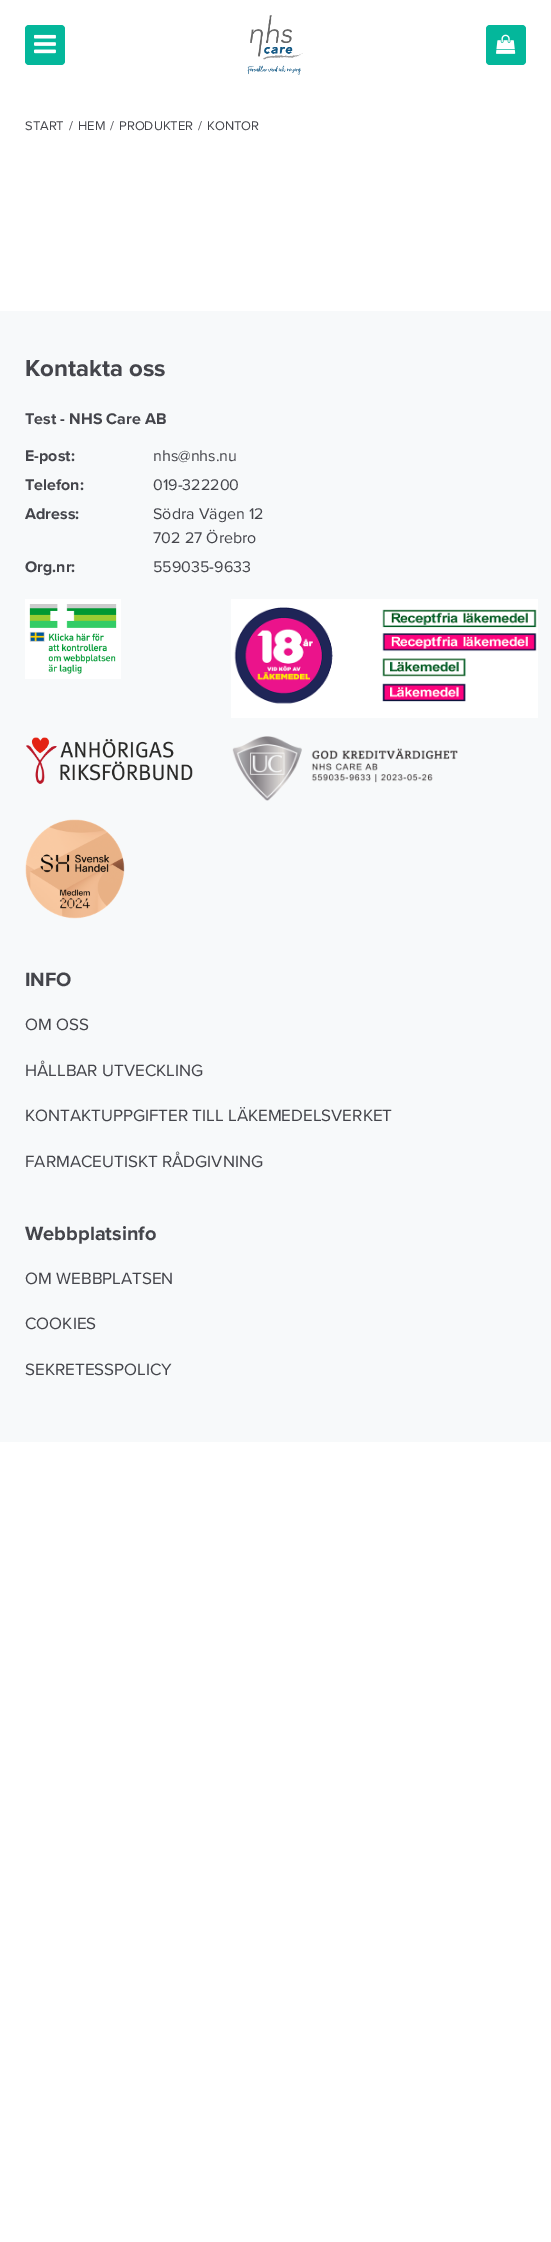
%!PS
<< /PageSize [551 2242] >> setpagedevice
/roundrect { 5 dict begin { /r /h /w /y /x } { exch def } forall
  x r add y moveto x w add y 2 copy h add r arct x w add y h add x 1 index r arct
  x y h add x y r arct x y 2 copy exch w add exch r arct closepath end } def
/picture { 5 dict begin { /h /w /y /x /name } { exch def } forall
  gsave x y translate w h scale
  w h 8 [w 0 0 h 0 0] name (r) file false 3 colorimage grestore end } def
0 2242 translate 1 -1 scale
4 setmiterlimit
1 setgray
0 0 551 2242 rectfill
0.016 0.718 0.608 setrgbcolor
25 25 40 40 4 roundrect fill
(img1.rgb) 34 34 22 20 picture
(img2.rgb) 247 15 56 60 picture
486 25 40 40 4 roundrect fill
(img3.rgb) 496 34 20 20 picture
/ProximaNova-Regular [13 0 0 -13 0 0] selectfont
0.267 0.271 0.294 setrgbcolor
25 130 moveto (START) show
69 130 moveto (/) show
78 130 moveto (HEM) show
110 130 moveto (/) show
119 130 moveto (PRODUKTER) show
198 130 moveto (/) show
207 130 moveto (KONTOR) show
0.969 0.976 0.98 setrgbcolor
0 311 551 1131 rectfill
/ProximaNova-Bold [24 0 0 -24 0 0] selectfont
0.267 0.271 0.294 setrgbcolor
25 376 moveto (Kontakta oss) show
/ProximaNova-Bold [16 0 0 -16 0 0] selectfont
25 424 moveto (Test - NHS Care AB) show
25 461 moveto (E-post:) show
/ProximaNova-Regular [16 0 0 -16 0 0] selectfont
153 461 moveto (nhs@nhs.nu) show
/ProximaNova-Bold [16 0 0 -16 0 0] selectfont
25 490 moveto (Telefon:) show
/ProximaNova-Regular [16 0 0 -16 0 0] selectfont
153 490 moveto (019-322200) show
/ProximaNova-Bold [16 0 0 -16 0 0] selectfont
25 519 moveto (Adress:) show
/ProximaNova-Regular [16 0 0 -16 0 0] selectfont
153 519 moveto (Södra Vägen 12) show
153 543 moveto (702 27 Örebro) show
/ProximaNova-Bold [16 0 0 -16 0 0] selectfont
25 572 moveto (Org.nr:) show
/ProximaNova-Regular [16 0 0 -16 0 0] selectfont
153 572 moveto (559035-9633) show
(img4.rgb) 25 599 96 80 picture
(img5.rgb) 231 599 307 119 picture
(img6.rgb) 26 737 167 47 picture
(img7.rgb) 232 736 226 65 picture
(img8.rgb) 25 819 100 100 picture
/ProximaNova-Bold [20 0 0 -20 0 0] selectfont
25 986 moveto (INFO) show
/ProximaNova-Regular [17 0 0 -17 0 0] selectfont
25 1030 moveto (OM OSS) show
25 1076 moveto (HÅLLBAR UTVECKLING) show
25 1121 moveto (KONTAKTUPPGIFTER TILL LÄKEMEDELSVERKET) show
25 1167 moveto (FARMACEUTISKT RÅDGIVNING) show
/ProximaNova-Bold [20 0 0 -20 0 0] selectfont
25 1240 moveto (Webbplatsinfo) show
/ProximaNova-Regular [17 0 0 -17 0 0] selectfont
25 1284 moveto (OM WEBBPLATSEN) show
25 1329 moveto (COOKIES) show
25 1375 moveto (SEKRETESSPOLICY) show
showpage
